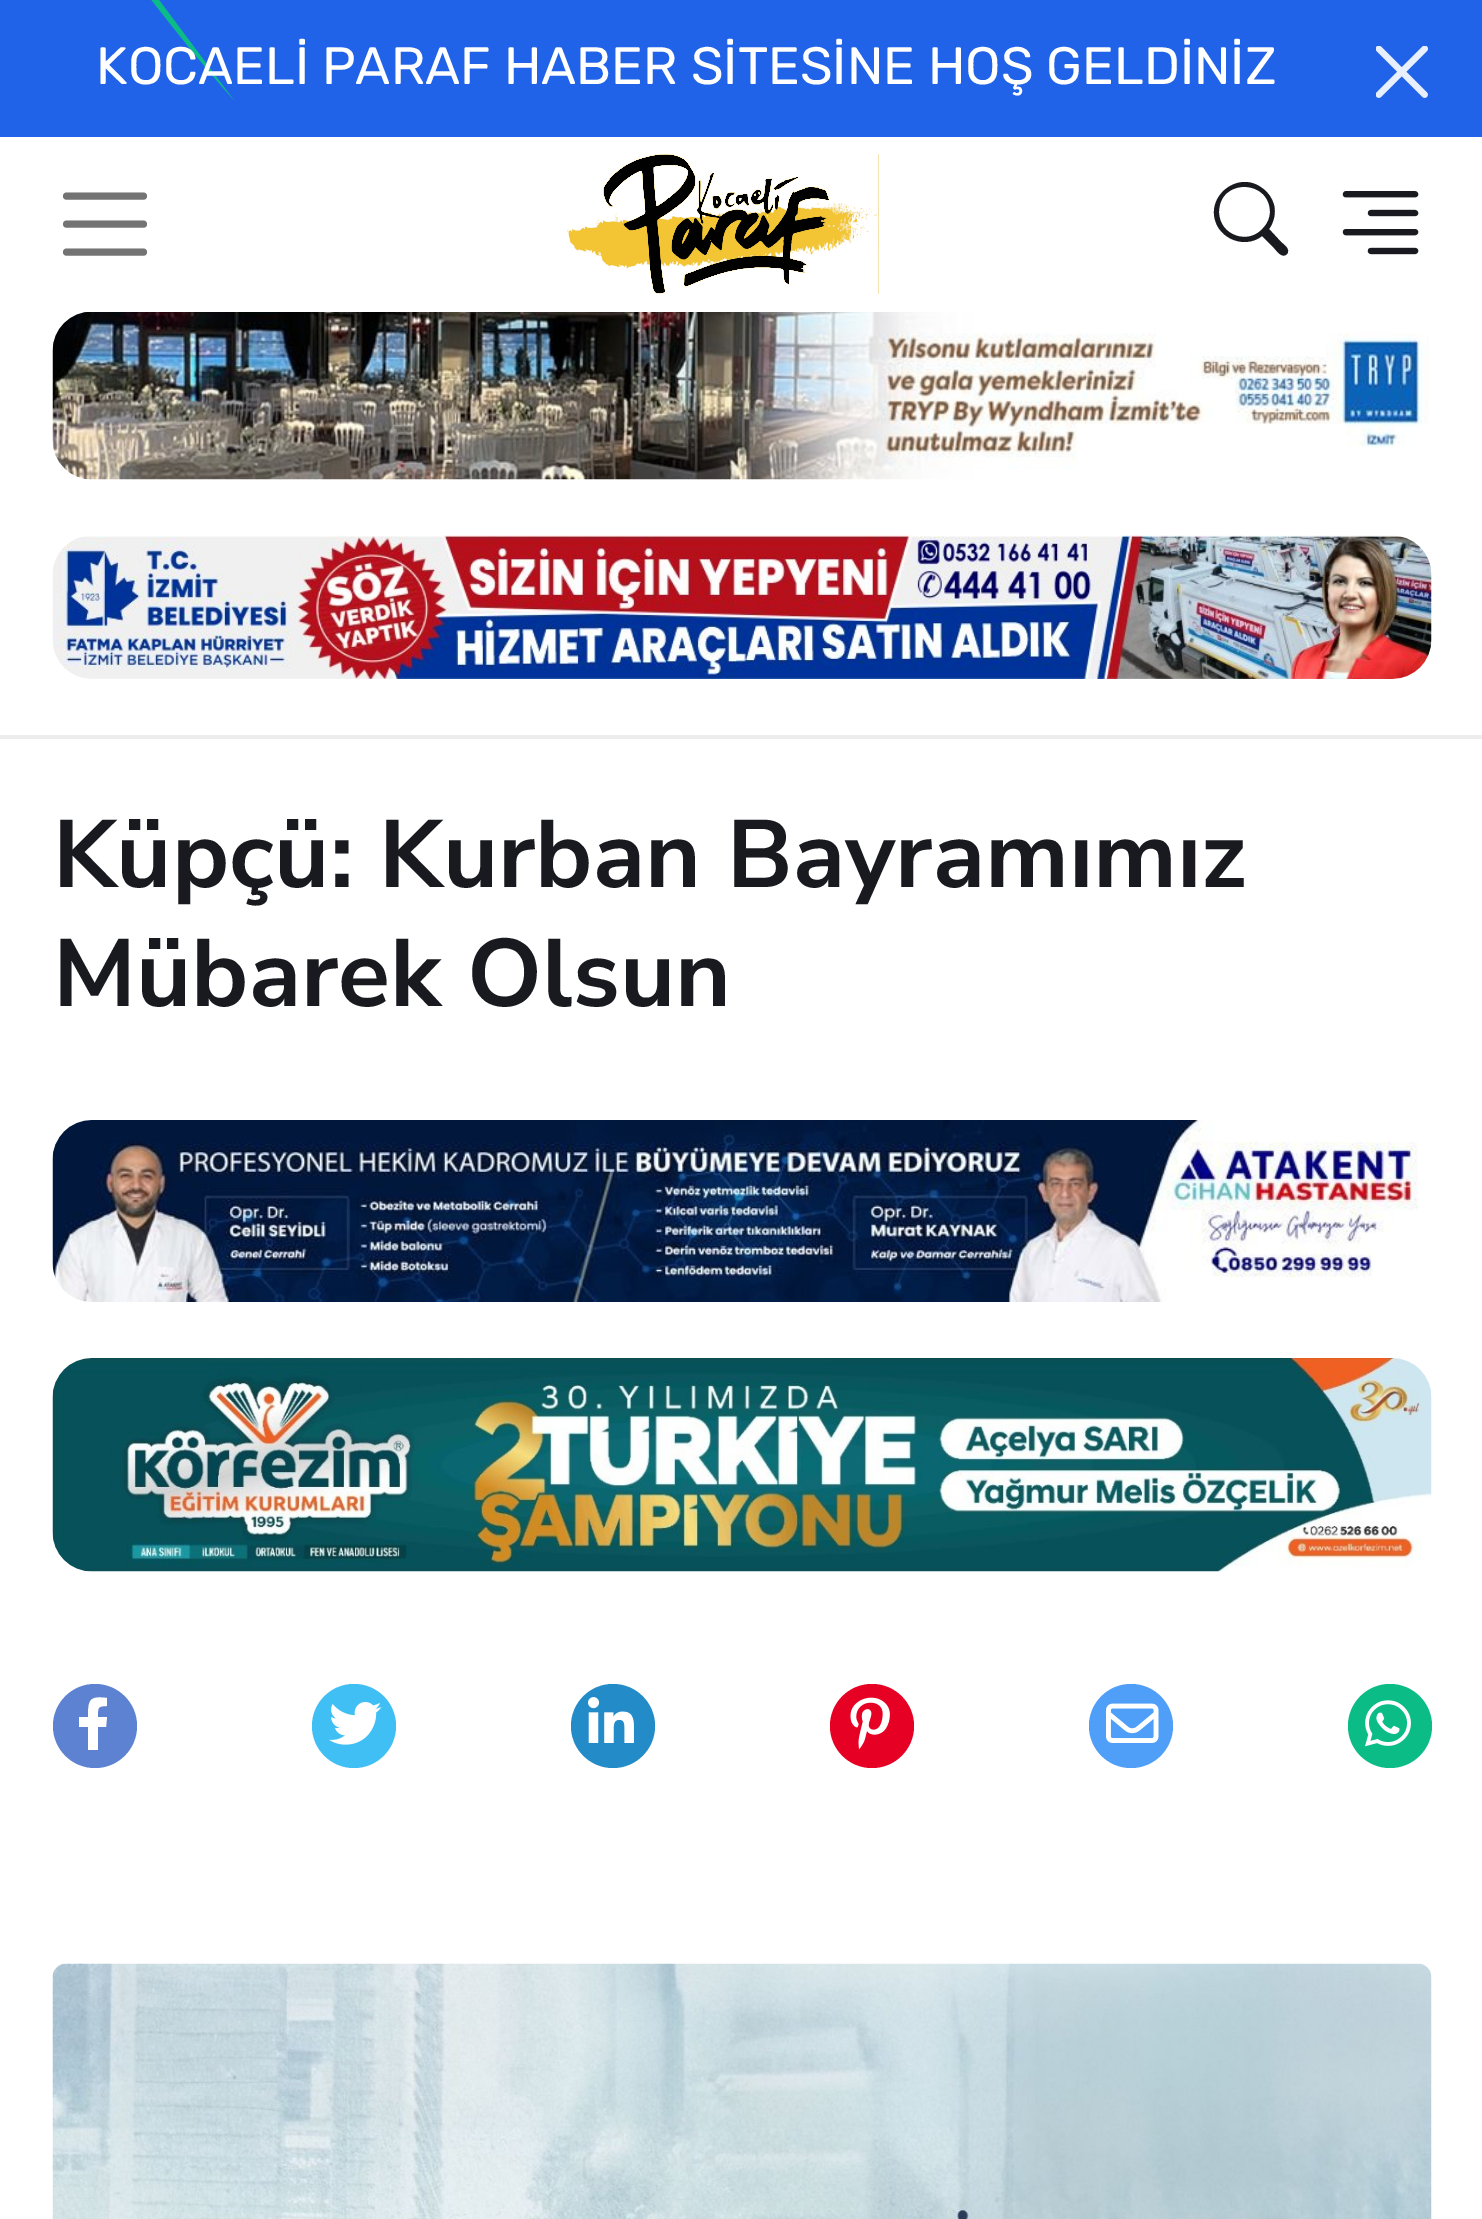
%!PS
<< /PageSize [1482 2219] >> setpagedevice
/picture { 5 dict begin { /h /w /y /x /name } { exch def } forall
  gsave x y translate w h scale
  w h 8 [w 0 0 h 0 0] name (r) file false 3 colorimage grestore end } def
0 2219 translate 1 -1 scale
4 setmiterlimit
1 setgray
0 0 1482 2219 rectfill
0.129 0.388 0.91 setrgbcolor
0 0 1482 137 rectfill
(img1.rgb) 151 0 84 101 picture
/Rubik-Regular [52.5 0 0 -52.5 0 0] selectfont
1 setgray
96 84 moveto (KOCAELİ PARAF HABER SİTESİNE HOŞ GELDİNİZ) show
(img2.rgb) 1376 46 52 52 picture
0.451 setgray
7 setlinewidth
1 setlinecap
newpath 66.5 196 moveto 143.5 196 lineto 66.5 224 moveto 143.5 224 lineto 66.5 252 moveto 143.5 252 lineto stroke
(img3.rgb) 567 154 312 140 picture
0.098 0.102 0.122 setrgbcolor
newpath 1269 229 moveto 1274 222 1276 213 1274 205 curveto 1272 198 1268 192 1262 188 curveto 1237 169 1202 199 1218 227 curveto 1227 242 1248 247 1262 236 curveto 1274 248 lineto 1277 251 1282 259 1287 254 curveto 1291 249 1283 244 1281 242 curveto closepath 1270 212 moveto 1270 217 1268 223 1264 227 curveto 1250 246 1219 236 1219 212 curveto 1219 178 1270 179 1270 212 curveto closepath fill
(img4.rgb) 1342 191 77 64 picture
(img5.rgb) 52 312 1377 168 picture
(img6.rgb) 52 535 1380 144 picture
0.929 setgray
0 735 1482 4 rectfill
/NunitoSans-Bold [95.6 0 0 -95.6 0 0] selectfont
0.098 0.102 0.122 setrgbcolor
53 887 moveto (Küpçü: Kurban Bayramımız) show
53 1006 moveto (Mübarek Olsun) show
(img7.rgb) 52 1120 1366 182 picture
(img8.rgb) 52 1358 1380 214 picture
0.365 0.51 0.82 setrgbcolor
newpath 95 1726 42 0 360 arc closepath fill
1 setgray
newpath 106 1727 moveto 98 1727 lineto 98 1750 lineto 88 1750 lineto 88 1727 lineto 79 1727 lineto 79 1717 lineto 88 1717 lineto 88 1699 90 1696 107 1698 curveto 107 1706 lineto 97 1706 98 1708 98 1717 curveto 107 1717 lineto closepath fill
0.251 0.749 0.961 setrgbcolor
newpath 354 1726 42 0 360 arc closepath fill
(img9.rgb) 329 1702 53 43 picture
0.137 0.549 0.784 setrgbcolor
newpath 613 1726 42 0 360 arc closepath fill
(img10.rgb) 588 1697 46 46 picture
0.902 0 0.137 setrgbcolor
newpath 872 1726 42 0 360 arc closepath fill
(img11.rgb) 850 1697 40 52 picture
0.31 0.62 0.973 setrgbcolor
newpath 1131 1726 42 0 360 arc closepath fill
(img12.rgb) 1106 1703 53 40 picture
0.047 0.737 0.529 setrgbcolor
newpath 1390 1726 42 0 360 arc closepath fill
(img13.rgb) 1365 1700 46 47 picture
(img14.rgb) 52 1963 1380 256 picture
showpage
